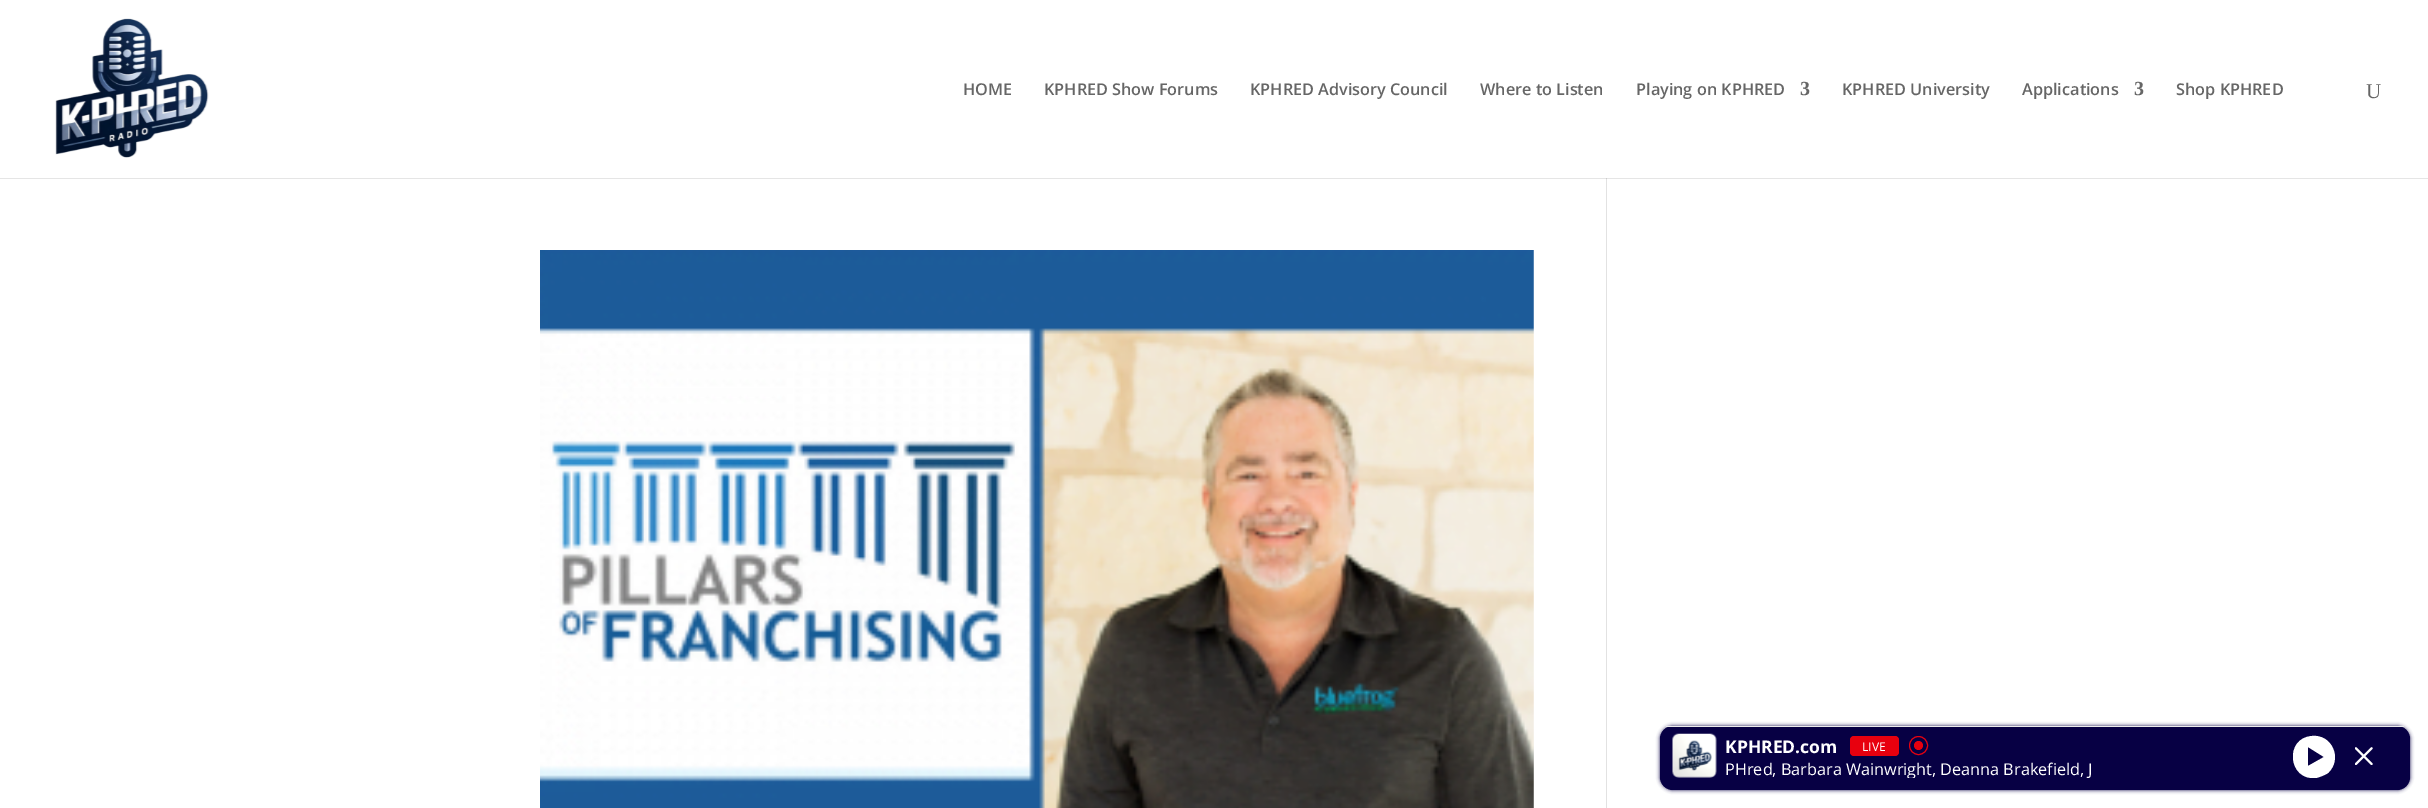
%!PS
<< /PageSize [2428 808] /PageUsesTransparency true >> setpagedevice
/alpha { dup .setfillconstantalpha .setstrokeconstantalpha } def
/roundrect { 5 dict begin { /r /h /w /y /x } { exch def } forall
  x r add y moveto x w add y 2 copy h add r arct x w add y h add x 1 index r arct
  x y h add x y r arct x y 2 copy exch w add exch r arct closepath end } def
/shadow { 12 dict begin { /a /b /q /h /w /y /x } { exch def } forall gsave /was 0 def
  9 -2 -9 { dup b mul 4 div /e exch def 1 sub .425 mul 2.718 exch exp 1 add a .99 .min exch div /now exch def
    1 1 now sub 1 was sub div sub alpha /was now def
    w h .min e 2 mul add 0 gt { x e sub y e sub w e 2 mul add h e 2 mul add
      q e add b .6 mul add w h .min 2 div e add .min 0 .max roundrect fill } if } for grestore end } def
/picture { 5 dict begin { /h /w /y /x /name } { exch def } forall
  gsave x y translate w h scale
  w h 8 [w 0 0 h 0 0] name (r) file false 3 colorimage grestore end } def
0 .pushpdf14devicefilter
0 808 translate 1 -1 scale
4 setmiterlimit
1 setgray
0 0 2428 808 rectfill
0.886 setgray
1606 178 1 630 rectfill
0.1 alpha
0 setgray
newpath 0 178 moveto 0 179 lineto 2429 179 lineto 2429 1 lineto 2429 178 lineto closepath fill
1 alpha
(img1.rgb) 55 18 154 140 picture
/OpenSans-SemiBold [16.25 0 0 -16.25 0 0] selectfont
0.4 setgray
963 95 moveto (HOME) show
1044 95 moveto (KPHRED Show Forums) show
1250 95 moveto (KPHRED Advisory Council) show
1480 95 moveto (Where to Listen) show
1636 95 moveto (Playing on KPHRED) show
/LiberationSerif-Bold [20 0 0 -20 0 0] selectfont
1800 95 moveto (3) show
/OpenSans-SemiBold [16.25 0 0 -16.25 0 0] selectfont
1842 95 moveto (KPHRED University) show
2022 95 moveto (Applications) show
/LiberationSerif-Bold [20 0 0 -20 0 0] selectfont
2134 95 moveto (3) show
/OpenSans-SemiBold [16.25 0 0 -16.25 0 0] selectfont
2176 95 moveto (Shop KPHRED) show
/LiberationSerif-Regular [21 0 0 -21 0 0] selectfont
2366 98 moveto (U) show
(img2.rgb) 540 250 994 558 picture
0.027 0 0.267 setrgbcolor
1660 726 750 64 13 2 1 shadow
1660 726 750 64 13 roundrect fill
0.929 setgray
1666 726 738 1 rectfill
(img3.rgb) 1672 733 45 45 picture
/OpenSans-Bold [17.5 0 0 -17.5 0 0] selectfont
1 setgray
1725 753 moveto (KPHRED.com) show
0.91 0 0.055 setrgbcolor
1850 736 49 20 4 roundrect fill
/OpenSans-Regular [12 0 0 -12 0 0] selectfont
1 setgray
1862 751 moveto (LIVE) show
0.91 0 0.055 setrgbcolor
newpath 1918.5 745.5 4.5 0 360 arc closepath fill
newpath 1918.5 745.5 9 0 360 arc closepath stroke
gsave
1725 758 370 20 rectclip
/OpenSans-Regular [16.25 0 0 -16.25 0 0] selectfont
1 setgray
1725 775 moveto (PHred, Barbara Wainwright, Deanna Brakefield, J) show
grestore
gsave
2293 735 42 43 rectclip
1 setgray
newpath 2312 736 moveto 2284 738 2288 781 2316 778 curveto 2320 777 2325 775 2328 773 curveto 2343 759 2332 734 2312 736 curveto closepath 2316 752 moveto 2324 757 lineto 2308 766 lineto 2308 747 lineto closepath fill
grestore
(img4.rgb) 2355 747 18 18 picture
.poppdf14devicefilter showpage
